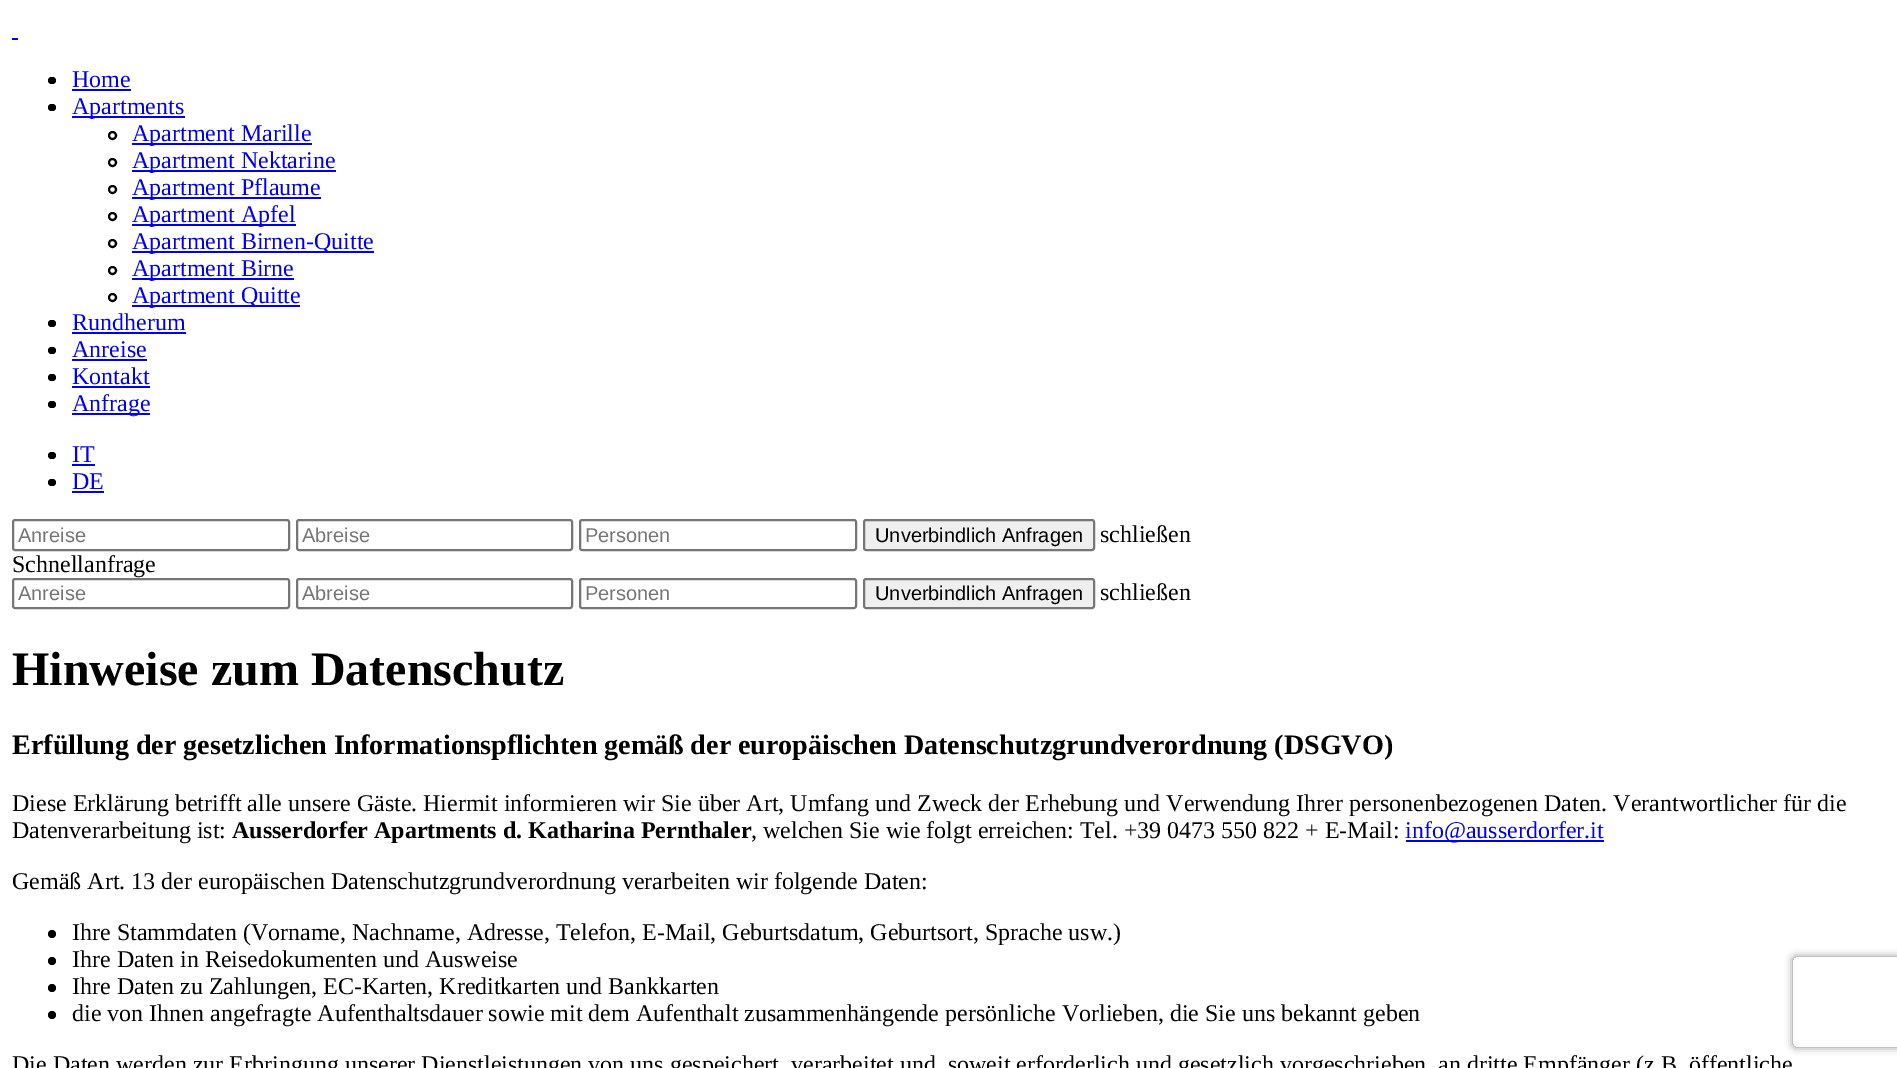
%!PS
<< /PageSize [1897 1068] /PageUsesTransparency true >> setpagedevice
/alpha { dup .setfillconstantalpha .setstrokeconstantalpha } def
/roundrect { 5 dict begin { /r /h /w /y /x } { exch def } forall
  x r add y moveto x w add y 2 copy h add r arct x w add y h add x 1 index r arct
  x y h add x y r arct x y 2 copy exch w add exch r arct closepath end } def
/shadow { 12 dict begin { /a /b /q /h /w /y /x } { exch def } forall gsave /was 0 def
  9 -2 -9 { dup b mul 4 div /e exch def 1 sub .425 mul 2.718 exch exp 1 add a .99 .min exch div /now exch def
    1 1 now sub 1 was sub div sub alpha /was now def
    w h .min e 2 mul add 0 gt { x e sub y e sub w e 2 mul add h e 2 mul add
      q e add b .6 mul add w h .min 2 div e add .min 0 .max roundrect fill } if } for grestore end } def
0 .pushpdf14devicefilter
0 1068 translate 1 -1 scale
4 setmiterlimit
1 setgray
0 0 1897 1068 rectfill
0 0 0.933 setrgbcolor
12 38 6 2 rectfill
0 setgray
48 77 8 7 3.5 roundrect fill
/LiberationSerif-Regular [24 0 0 -24 0 0] selectfont
0 0 0.933 setrgbcolor
72 87 moveto (Home) show
72 89 59 2 rectfill
0 setgray
48 104 8 7 3.5 roundrect fill
0 0 0.933 setrgbcolor
72 116 113 2 rectfill
72 114 moveto (Apartments) show
0 setgray
2 setlinewidth
newpath 112.5 135.5 3.5 0 360 arc closepath stroke
0 0 0.933 setrgbcolor
132 143 180 2 rectfill
132 141 moveto (Apartment Marille) show
0 setgray
newpath 112.5 162.5 3.5 0 360 arc closepath stroke
0 0 0.933 setrgbcolor
132 170 204 2 rectfill
132 168 moveto (Apartment Nektarine) show
0 setgray
newpath 112.5 189.5 3.5 0 360 arc closepath stroke
0 0 0.933 setrgbcolor
132 197 189 2 rectfill
132 195 moveto (Apartment Pflaume) show
0 setgray
newpath 112.5 216.5 3.5 0 360 arc closepath stroke
0 0 0.933 setrgbcolor
132 224 164 2 rectfill
132 222 moveto (Apartment Apfel) show
0 setgray
newpath 112.5 243.5 3.5 0 360 arc closepath stroke
0 0 0.933 setrgbcolor
132 251 242 2 rectfill
132 249 moveto (Apartment Birnen-Quitte) show
0 setgray
newpath 112.5 270.5 3.5 0 360 arc closepath stroke
0 0 0.933 setrgbcolor
132 278 162 2 rectfill
132 276 moveto (Apartment Birne) show
0 setgray
newpath 112.5 297.5 3.5 0 360 arc closepath stroke
0 0 0.933 setrgbcolor
132 305 168 2 rectfill
132 303 moveto (Apartment Quitte) show
0 setgray
48 320 8 7 3.5 roundrect fill
0 0 0.933 setrgbcolor
72 330 moveto (Rundherum) show
72 332 114 2 rectfill
0 setgray
48 347 8 7 3.5 roundrect fill
0 0 0.933 setrgbcolor
72 357 moveto (Anreise) show
72 359 75 2 rectfill
0 setgray
48 374 8 7 3.5 roundrect fill
0 0 0.933 setrgbcolor
72 384 moveto (Kontakt) show
72 386 78 2 rectfill
0 setgray
48 401 8 7 3.5 roundrect fill
0 0 0.933 setrgbcolor
72 413 78 2 rectfill
72 411 moveto (Anfrage) show
0 setgray
48 452 8 7 3.5 roundrect fill
0 0 0.933 setrgbcolor
72 462 moveto (IT) show
72 464 23 2 rectfill
0 setgray
48 479 8 7 3.5 roundrect fill
0 0 0.933 setrgbcolor
72 489 moveto (DE) show
72 491 32 2 rectfill
0.463 setgray
13 520 276 30 2 roundrect stroke
/LiberationSans-Regular [20 0 0 -20 0 0] selectfont
0.459 setgray
18 542 moveto (Anreise) show
0.463 setgray
297 520 275 30 2 roundrect stroke
0.459 setgray
302 542 moveto (Abreise) show
0.463 setgray
580 520 276 30 2 roundrect stroke
0.459 setgray
585 542 moveto (Personen) show
0.937 setgray
864 520 230 30 2 roundrect gsave fill grestore
0.463 setgray
stroke
0 setgray
875 542 moveto (Unverbindlich Anfragen) show
/LiberationSerif-Regular [24 0 0 -24 0 0] selectfont
1100 542 moveto (schließen) show
12 572 moveto (Schnellanfrage) show
0.463 setgray
13 579 276 29 2 roundrect stroke
/LiberationSans-Regular [20 0 0 -20 0 0] selectfont
0.459 setgray
18 600 moveto (Anreise) show
0.463 setgray
297 579 275 29 2 roundrect stroke
0.459 setgray
302 600 moveto (Abreise) show
0.463 setgray
580 579 276 29 2 roundrect stroke
0.459 setgray
585 600 moveto (Personen) show
0.937 setgray
864 579 230 29 2 roundrect gsave fill grestore
0.463 setgray
stroke
0 setgray
875 600 moveto (Unverbindlich Anfragen) show
/LiberationSerif-Regular [24 0 0 -24 0 0] selectfont
1100 600 moveto (schließen) show
/LiberationSerif-Bold [48 0 0 -48 0 0] selectfont
12 685 moveto (Hinweise zum Datenschutz) show
/LiberationSerif-Bold [28.1 0 0 -28.1 0 0] selectfont
12 754 moveto -0.25 0 32 (Erfüllung der gesetzlichen Informationspflichten gemäß der europäischen Datenschutzgrundverordnung \(DSGVO\)) widthshow
/LiberationSerif-Regular [24 0 0 -24 0 0] selectfont
12 811 moveto (Diese Erklärung betrifft alle unsere Gäste. Hiermit informieren wir Sie über Art, Umfang und Zweck der Erhebung und Verwendung Ihrer personenbezogenen Daten. Verantwortlicher für die) show
12 838 moveto (Datenverarbeitung ist:) show
/LiberationSerif-Bold [24 0 0 -24 0 0] selectfont
232 838 moveto (Ausserdorfer Apartments d. Katharina Pernthaler) show
/LiberationSerif-Regular [24 0 0 -24 0 0] selectfont
751 838 moveto (, welchen Sie wie folgt erreichen: Tel. +39 0473 550 822 + E-Mail:) show
0 0 0.933 setrgbcolor
1406 840 198 2 rectfill
1405 838 moveto (info@ausserdorfer.it) show
0 setgray
12 889 moveto (Gemäß Art. 13 der europäischen Datenschutzgrundverordnung verarbeiten wir folgende Daten:) show
newpath 52 934 4 0 360 arc closepath fill
72 940 moveto (Ihre Stammdaten \(Vorname, Nachname, Adresse, Telefon, E-Mail, Geburtsdatum, Geburtsort, Sprache usw.\)) show
newpath 52 961 4 0 360 arc closepath fill
72 967 moveto (Ihre Daten in Reisedokumenten und Ausweise) show
newpath 52 988 4 0 360 arc closepath fill
72 994 moveto (Ihre Daten zu Zahlungen, EC-Karten, Kreditkarten und Bankkarten) show
newpath 52 1015 4 0 360 arc closepath fill
72 1021 moveto (die von Ihnen angefragte Aufenthaltsdauer sowie mit dem Aufenthalt zusammenhängende persönliche Vorlieben, die Sie uns bekannt geben) show
12 1072 moveto (Die Daten werden zur Erbringung unserer Dienstleistungen von uns gespeichert, verarbeitet und, soweit erforderlich und gesetzlich vorgeschrieben, an dritte Empfänger \(z.B. öffentliche) show
gsave
newpath 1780 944 moveto 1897 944 lineto 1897 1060 lineto 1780 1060 lineto closepath 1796 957 moveto 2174 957 lineto 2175.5 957 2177 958.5 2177 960 curveto 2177 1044 lineto 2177 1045.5 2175.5 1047 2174 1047 curveto 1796 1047 lineto 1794.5 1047 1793 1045.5 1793 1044 curveto 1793 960 lineto 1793 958.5 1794.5 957 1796 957 curveto closepath eoclip newpath
0.502 setgray
1793 957 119 90 3 4 1 shadow
grestore
.poppdf14devicefilter showpage
